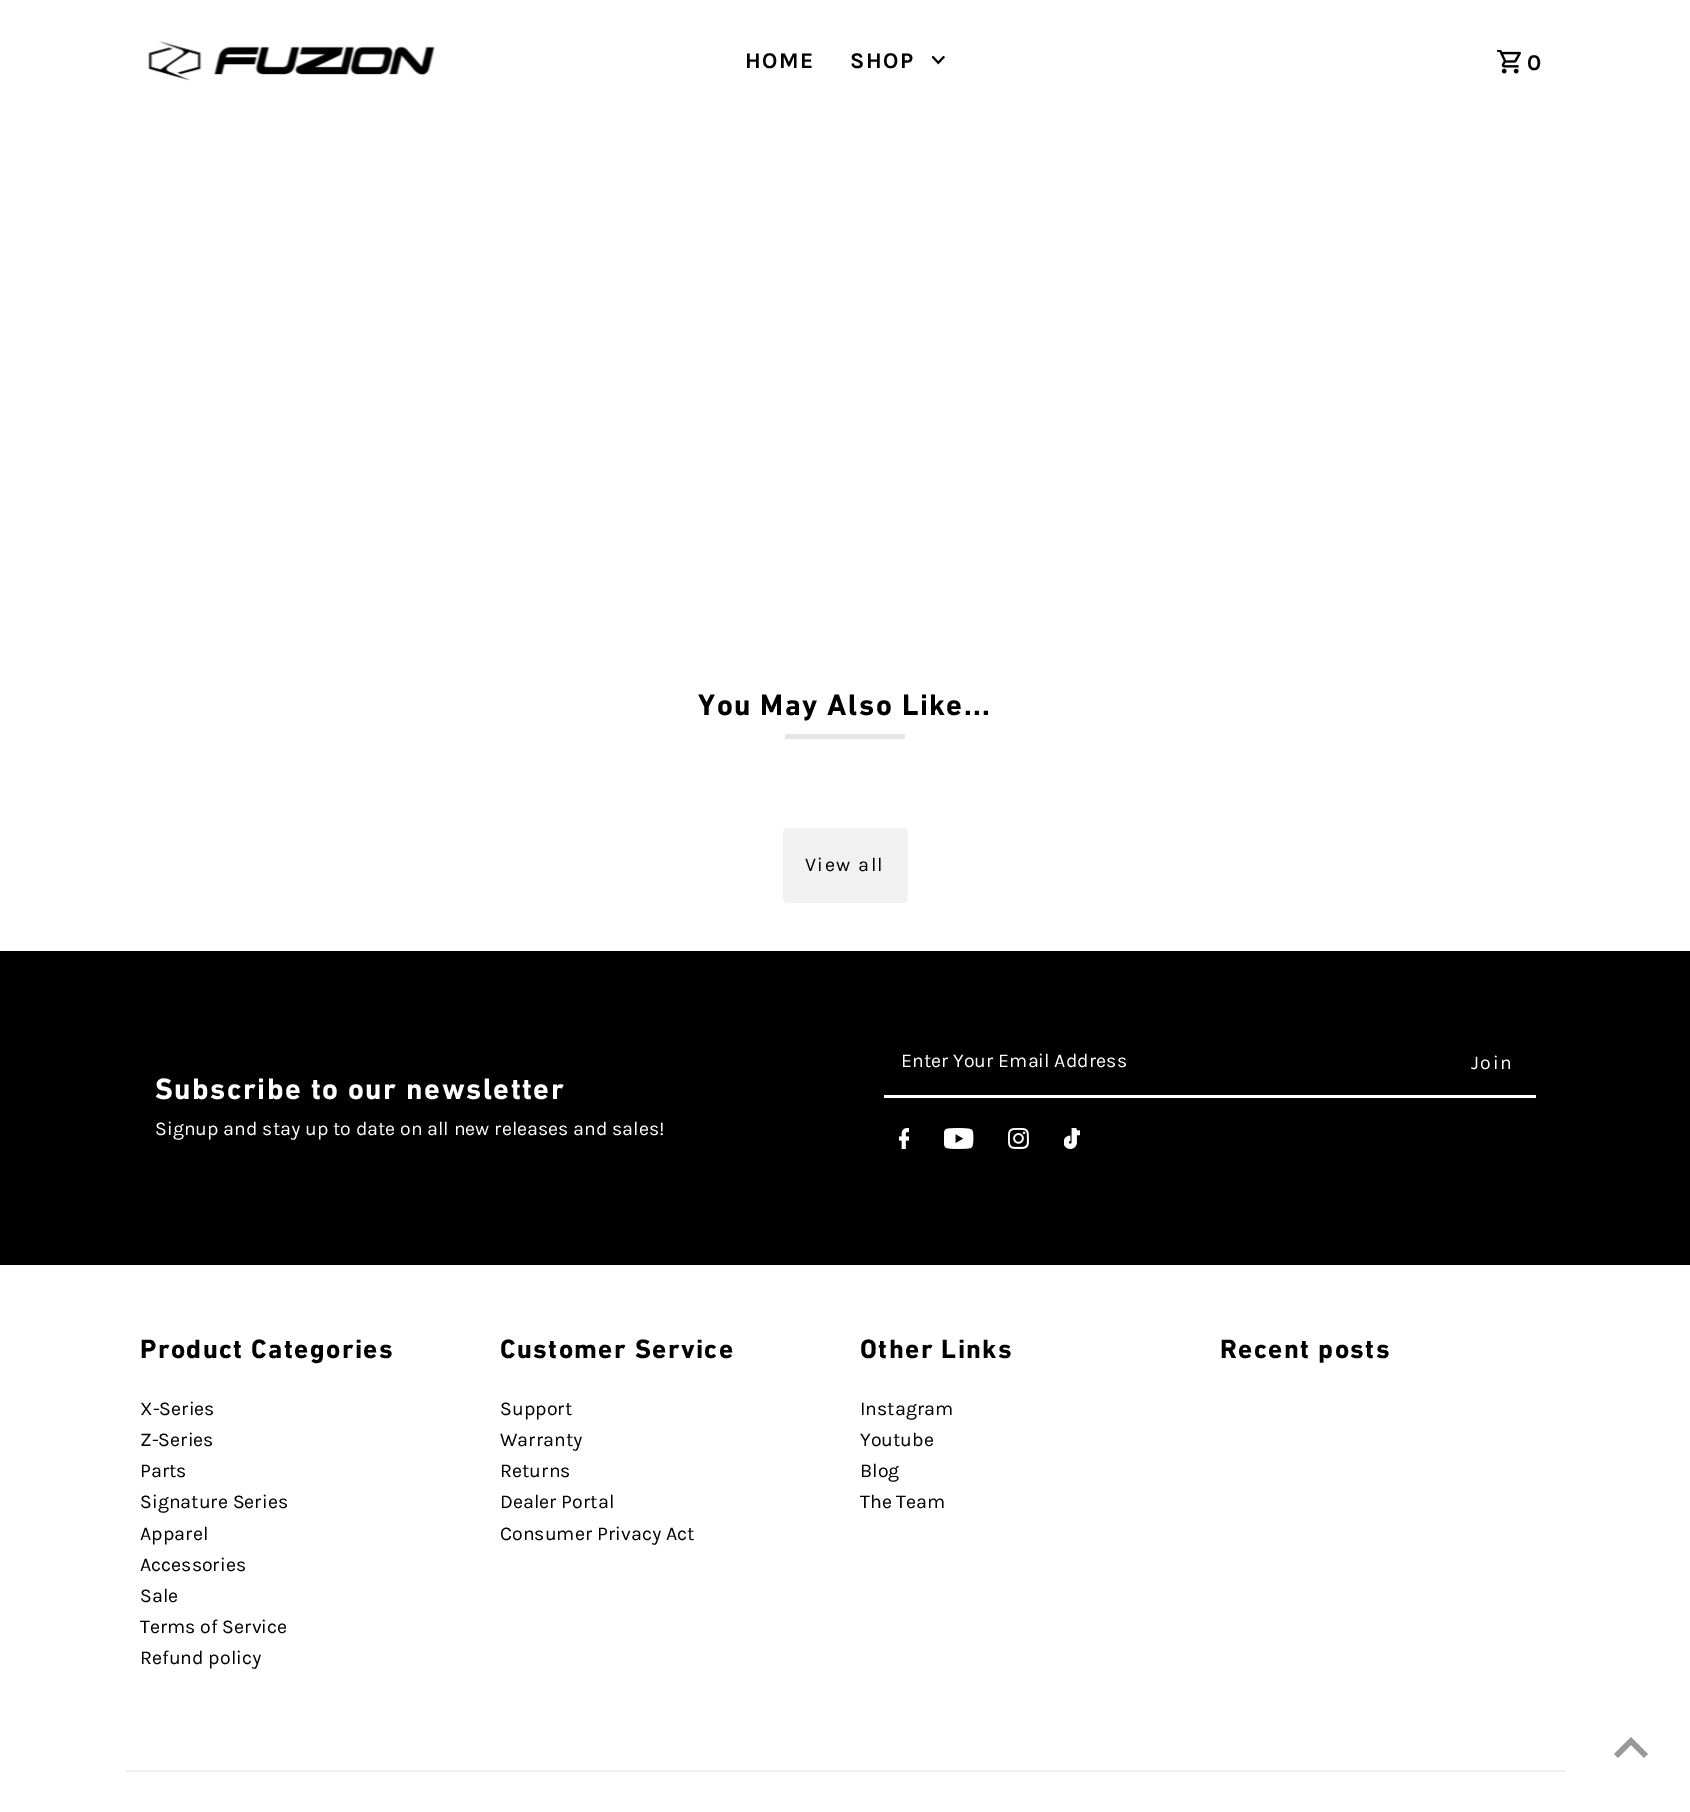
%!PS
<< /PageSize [1690 1812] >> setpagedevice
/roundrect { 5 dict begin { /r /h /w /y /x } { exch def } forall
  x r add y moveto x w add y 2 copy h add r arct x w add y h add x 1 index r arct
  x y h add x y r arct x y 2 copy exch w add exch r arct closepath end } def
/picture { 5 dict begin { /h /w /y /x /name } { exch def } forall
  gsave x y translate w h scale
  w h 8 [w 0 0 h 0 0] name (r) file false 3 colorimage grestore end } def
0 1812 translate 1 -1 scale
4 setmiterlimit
1 setgray
0 0 1690 1812 rectfill
(img1.rgb) 148 41 287 40 picture
/Karla-Bold [22.5 0 0 -22.5 0 0] selectfont
0 setgray
745 68 moveto 1.5 0 (HOME) ashow
850 68 moveto 1.5 0 (SHOP) ashow
(img2.rgb) 932 56 13 9 picture
(img3.rgb) 1497 50 24 24 picture
1527 70 moveto 1.5 0 (0) ashow
/DINNext-Bold [30 0 0 -30 0 0] selectfont
698 715 moveto 1.5 0 (You May Also Like...) ashow
0.898 setgray
785 734 120 5 rectfill
0.945 setgray
783 828 125 75 5 roundrect fill
/Karla-Regular [19.5 0 0 -19.5 0 0] selectfont
0 setgray
805 871 moveto 1.5 0 (View all) ashow
0 951 1690 314 rectfill
1 setgray
884 1095 652 3 rectfill
901 1067 moveto (Enter Your Email Address) show
1471 1069 moveto 1.5 0 (Join) ashow
(img4.rgb) 899 1128 10 21 picture
(img5.rgb) 944 1128 30 21 picture
(img6.rgb) 1008 1128 21 21 picture
(img7.rgb) 1064 1128 16 21 picture
/DINNext-Bold [30 0 0 -30 0 0] selectfont
155 1099 moveto 1.5 0 (Subscribe to our newsletter) ashow
/Karla-Regular [19.5 0 0 -19.5 0 0] selectfont
155 1135 moveto (Signup and stay up to date on all new releases and sales!) show
/DINNext-Bold [27 0 0 -27 0 0] selectfont
0 setgray
140 1358 moveto 1.4 0 (Product Categories) ashow
/Karla-Regular [19.5 0 0 -19.5 0 0] selectfont
140 1415 moveto (X-Series) show
140 1446 moveto (Z-Series) show
140 1477 moveto (Parts) show
140 1508 moveto (Signature Series) show
140 1540 moveto (Apparel) show
140 1571 moveto (Accessories) show
140 1602 moveto (Sale) show
140 1633 moveto (Terms of Service) show
140 1664 moveto (Refund policy) show
/DINNext-Bold [27 0 0 -27 0 0] selectfont
500 1358 moveto 1.4 0 (Customer Service) ashow
/Karla-Regular [19.5 0 0 -19.5 0 0] selectfont
500 1415 moveto (Support) show
500 1446 moveto (Warranty) show
500 1477 moveto (Returns) show
500 1508 moveto (Dealer Portal) show
500 1540 moveto (Consumer Privacy Act) show
/DINNext-Bold [27 0 0 -27 0 0] selectfont
860 1358 moveto 1.4 0 (Other Links) ashow
/Karla-Regular [19.5 0 0 -19.5 0 0] selectfont
860 1415 moveto (Instagram) show
860 1446 moveto (Youtube) show
860 1477 moveto (Blog) show
860 1508 moveto (The Team) show
/DINNext-Bold [27 0 0 -27 0 0] selectfont
1220 1358 moveto 1.4 0 (Recent posts) ashow
0.945 setgray
126 1770 1440 2 rectfill
0.6 setgray
newpath 1631 1737 moveto 1614 1754 lineto 1618 1758 lineto 1631 1745 lineto 1644 1758 lineto 1648 1754 lineto closepath fill
showpage
